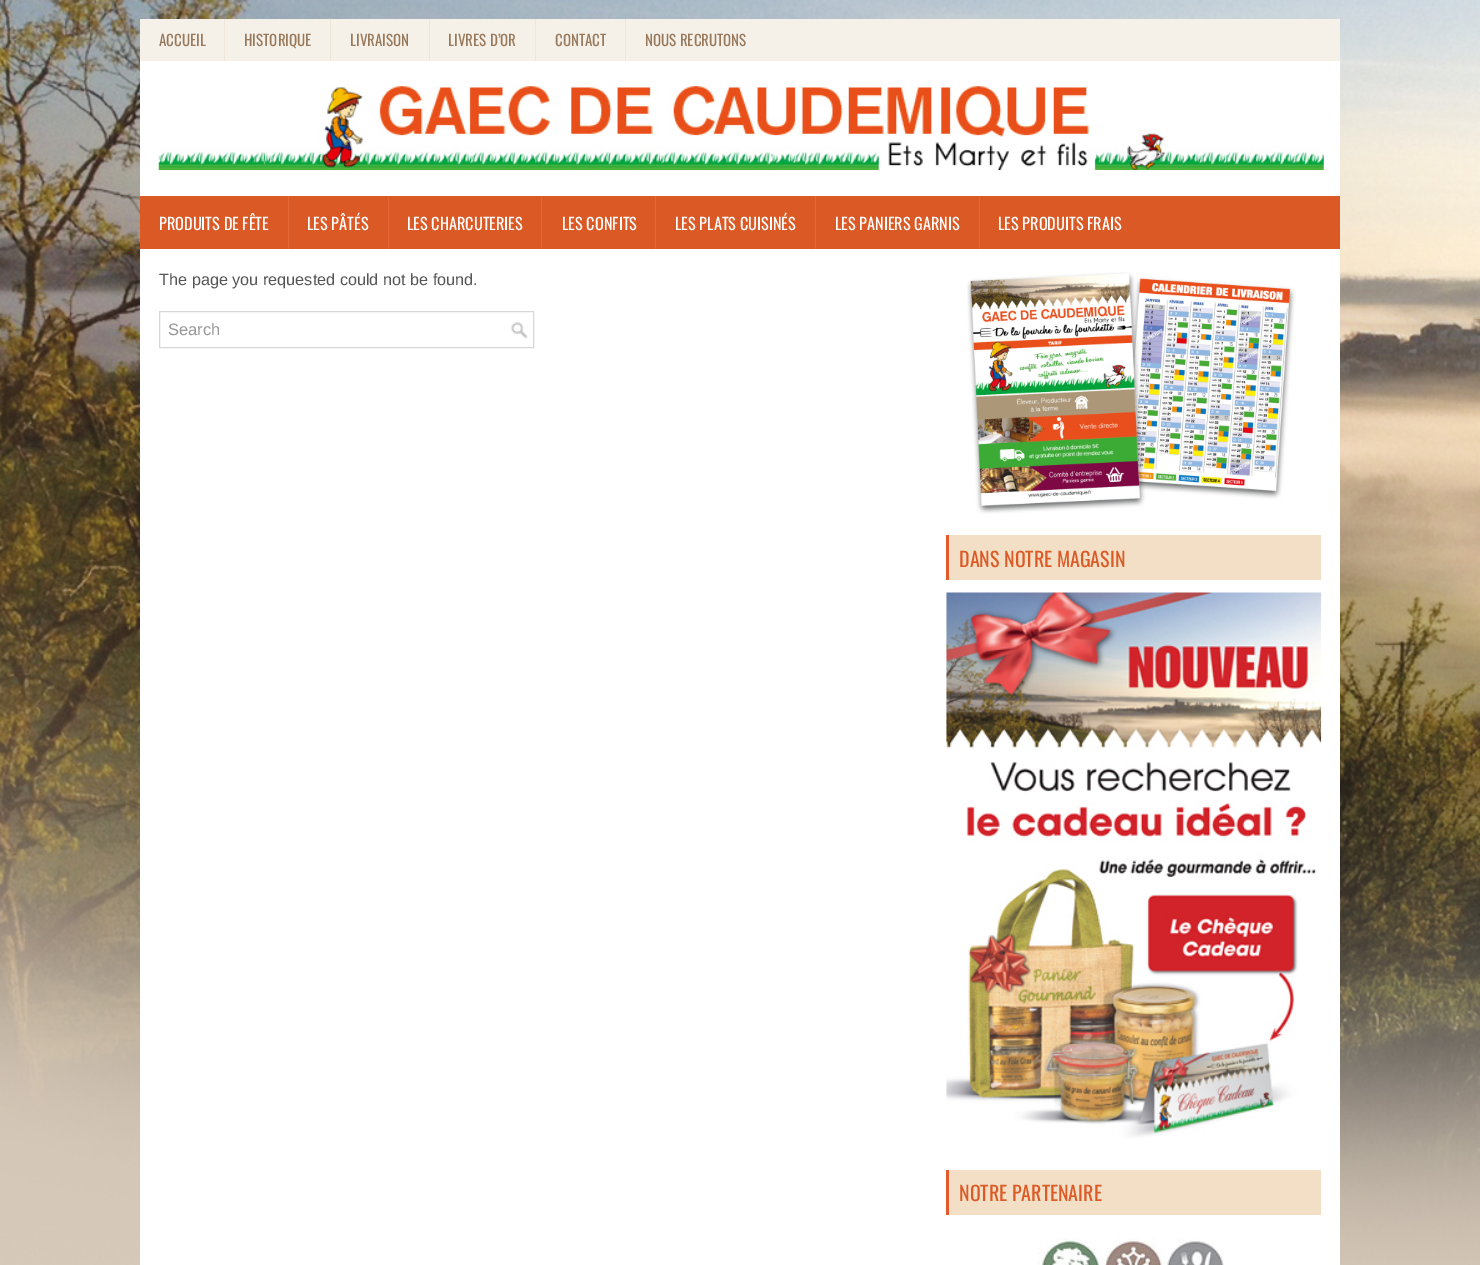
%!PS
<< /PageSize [1480 1265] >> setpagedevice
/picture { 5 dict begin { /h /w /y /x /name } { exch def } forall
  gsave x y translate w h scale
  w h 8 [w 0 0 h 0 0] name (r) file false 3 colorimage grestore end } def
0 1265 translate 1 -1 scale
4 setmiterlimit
1 setgray
0 0 1480 1265 rectfill
(img1.rgb) 0 0 1480 1265 picture
0.961 0.941 0.91 setrgbcolor
140 19 1200 42 rectfill
/Oswald-Regular [15 0 0 -15 0 0] selectfont
0.596 0.475 0.361 setrgbcolor
159 46 moveto (ACCUEIL) show
0.937 0.902 0.847 setrgbcolor
224 19 1 42 rectfill
0.596 0.475 0.361 setrgbcolor
244 46 moveto (HISTORIQUE) show
0.937 0.902 0.847 setrgbcolor
330 19 1 42 rectfill
0.596 0.475 0.361 setrgbcolor
350 46 moveto (LIVRAISON) show
0.937 0.902 0.847 setrgbcolor
429 19 1 42 rectfill
0.596 0.475 0.361 setrgbcolor
448 46 moveto (LIVRES D’OR) show
0.937 0.902 0.847 setrgbcolor
535 19 1 42 rectfill
0.596 0.475 0.361 setrgbcolor
555 46 moveto (CONTACT) show
0.937 0.902 0.847 setrgbcolor
625 19 1 42 rectfill
0.596 0.475 0.361 setrgbcolor
645 46 moveto (NOUS RECRUTONS) show
1 setgray
140 61 1200 135 rectfill
(img2.rgb) 158 86 1166 84 picture
0.859 0.349 0.145 setrgbcolor
140 196 1200 53 rectfill
/Oswald-Regular [16.25 0 0 -16.25 0 0] selectfont
0.996 setgray
159 230 moveto (PRODUITS DE FÊTE) show
0.894 0.404 0.208 setrgbcolor
288 196 1 53 rectfill
0.996 setgray
307 230 moveto (LES PÂTÉS) show
0.894 0.404 0.208 setrgbcolor
388 196 1 53 rectfill
0.996 setgray
407 230 moveto (LES CHARCUTERIES) show
0.894 0.404 0.208 setrgbcolor
541 196 1 53 rectfill
0.996 setgray
562 230 moveto (LES CONFITS) show
0.894 0.404 0.208 setrgbcolor
655 196 1 53 rectfill
0.996 setgray
675 230 moveto (LES PLATS CUISINÉS) show
0.894 0.404 0.208 setrgbcolor
815 196 1 53 rectfill
0.996 setgray
835 230 moveto (LES PANIERS GARNIS) show
0.894 0.404 0.208 setrgbcolor
979 196 1 53 rectfill
0.996 setgray
998 230 moveto (LES PRODUITS FRAIS) show
1 setgray
140 249 1200 1016 rectfill
/LiberationSans-Regular [16.25 0 0 -16.25 0 0] selectfont
0.333 setgray
159 285 moveto (The page you requested could not be found.) show
(img3.rgb) 511 322 17 17 picture
0.847 setgray
159.5 311.5 374 36 rectstroke
/LiberationSans-Regular [16.5 0 0 -16.5 0 0] selectfont
0.592 setgray
168 335 moveto (Search) show
(img4.rgb) 967 272 328 242 picture
0.953 0.875 0.773 setrgbcolor
949 535 372 45 rectfill
0.89 0.357 0.176 setrgbcolor
946 535 3 45 rectfill
/Oswald-Regular [20 0 0 -20 0 0] selectfont
0.859 0.353 0.145 setrgbcolor
959 567 moveto (DANS NOTRE MAGASIN) show
(img5.rgb) 946 592 376 546 picture
0.953 0.875 0.773 setrgbcolor
949 1170 372 45 rectfill
0.89 0.357 0.176 setrgbcolor
946 1170 3 45 rectfill
0.859 0.353 0.145 setrgbcolor
959 1201 moveto (NOTRE PARTENAIRE) show
(img6.rgb) 1037 1238 187 27 picture
showpage
